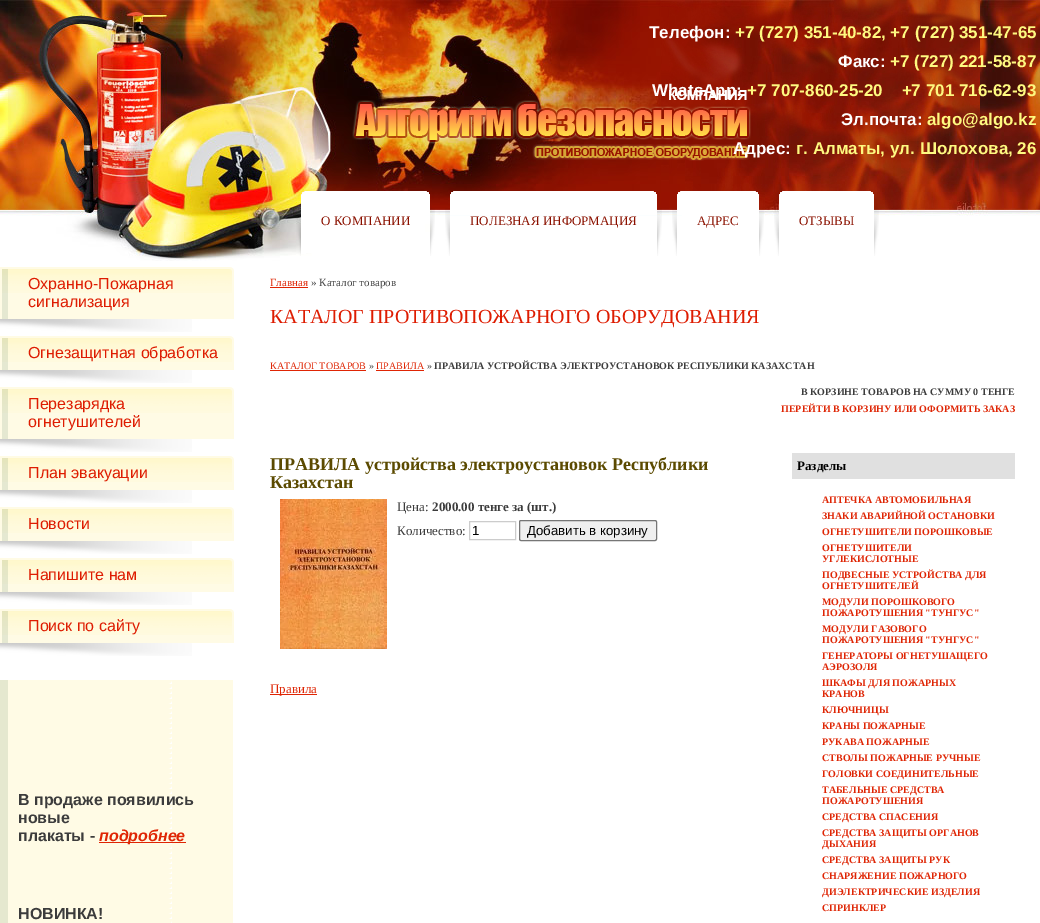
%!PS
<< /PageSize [1040 923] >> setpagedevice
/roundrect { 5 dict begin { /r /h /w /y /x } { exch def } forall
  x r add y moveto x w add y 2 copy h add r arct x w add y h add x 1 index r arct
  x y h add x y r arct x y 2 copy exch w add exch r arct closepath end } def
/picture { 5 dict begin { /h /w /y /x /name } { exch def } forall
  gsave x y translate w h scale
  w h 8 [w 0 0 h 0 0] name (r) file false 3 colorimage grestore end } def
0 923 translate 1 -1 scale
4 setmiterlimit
1 setgray
0 0 1040 923 rectfill
(img1.rgb) 660 0 1 214 picture
(img2.rgb) 0 0 660 261 picture
(img4.rgb) 661 0 319 216 picture
/LiberationSans-Bold [17 0 0 -17 0 0] selectfont
649 38 moveto (Телефон:) show
(img3.rgb) 980 0 60 216 picture
0.996 0.976 0.502 setrgbcolor
735 38 moveto (+7 \(727\) 351-40-82, +7 \(727\) 351-47-65) show
1 setgray
838 67 moveto (Факс:) show
0.996 0.976 0.502 setrgbcolor
890 67 moveto (+7 \(727\) 221-58-87) show
(img5.rgb) 352 90 399 71 picture
1 setgray
652 96 moveto (WhatsApp:) show
0.996 0.976 0.502 setrgbcolor
747 96 moveto (+7 707-860-25-20    +7 701 716-62-93) show
1 setgray
841 125 moveto (Эл.почта:) show
0.996 0.976 0.502 setrgbcolor
927 125 moveto (algo@algo.kz) show
1 setgray
733 154 moveto (Адрес:) show
0.996 0.976 0.502 setrgbcolor
796 154 moveto (г. Алматы, ул. Шолохова, 26) show
(img6.rgb) 296 217 5 39 picture
(img7.rgb) 301 191 5 63 picture
(img8.rgb) 425 191 5 24 picture
1 setgray
306 191 119 62 rectfill
/LiberationSerif-Regular [13 0 0 -13 0 0] selectfont
0.545 0.067 0 setrgbcolor
321 225 moveto (О КОМПАНИИ) show
(img9.rgb) 430 208 5 48 picture
(img10.rgb) 445 208 5 48 picture
(img11.rgb) 450 191 5 24 picture
(img12.rgb) 652 191 5 24 picture
1 setgray
455 191 197 24 rectfill
0.545 0.067 0 setrgbcolor
470 225 moveto (ПОЛЕЗНАЯ ИНФОРМАЦИЯ) show
(img13.rgb) 657 208 5 48 picture
(img14.rgb) 672 208 5 48 picture
(img15.rgb) 677 191 5 24 picture
(img16.rgb) 754 191 5 25 picture
1 setgray
682 191 72 25 rectfill
0.545 0.067 0 setrgbcolor
697 225 moveto (АДРЕС) show
(img17.rgb) 759 208 5 48 picture
(img18.rgb) 774 208 5 48 picture
(img19.rgb) 779 191 5 25 picture
(img20.rgb) 869 191 5 25 picture
1 setgray
784 191 85 25 rectfill
0.545 0.067 0 setrgbcolor
799 225 moveto (ОТЗЫВЫ) show
(img21.rgb) 874 208 5 48 picture
(img22.rgb) 0 267 234 52 picture
(img23.rgb) 2 267 232 26 picture
/LiberationSans-Regular [16 0 0 -16 0 0] selectfont
0.871 0.11 0.004 setrgbcolor
28 289 moveto (Охранно-Пожарная) show
28 307 moveto (сигнализация) show
(img24.rgb) 0 319 192 13 picture
(img25.rgb) 0 336 234 34 picture
(img23.rgb) 2 336 232 26 picture
28 358 moveto (Огнезащитная обработка) show
(img24.rgb) 0 370 192 13 picture
(img22.rgb) 0 387 234 52 picture
(img23.rgb) 2 387 232 26 picture
28 409 moveto (Перезарядка) show
28 427 moveto (огнетушителей) show
(img24.rgb) 0 439 192 13 picture
(img25.rgb) 0 456 234 34 picture
(img23.rgb) 2 456 232 26 picture
28 478 moveto (План эвакуации) show
(img24.rgb) 0 490 192 13 picture
(img25.rgb) 0 507 234 34 picture
(img23.rgb) 2 507 232 26 picture
28 529 moveto (Новости) show
(img24.rgb) 0 541 192 13 picture
(img25.rgb) 0 558 234 34 picture
(img23.rgb) 2 558 232 26 picture
28 580 moveto (Напишите нам) show
(img24.rgb) 0 592 192 13 picture
(img25.rgb) 0 609 234 34 picture
(img23.rgb) 2 609 232 26 picture
28 631 moveto (Поиск по сайту) show
(img24.rgb) 0 643 192 13 picture
(img26.rgb) 8 680 225 243 picture
0.898 0.91 0.812 setrgbcolor
0 680 8 243 rectfill
/LiberationSans-Bold [16 0 0 -16 0 0] selectfont
0.235 setgray
18 805 moveto (В продаже появились) show
18 823 moveto (новые) show
18 841 moveto (плакаты -) show
0.875 0.145 0.016 setrgbcolor
99 842 87 1 rectfill
/LiberationSans-BoldItalic [16 0 0 -16 0 0] selectfont
99 841 moveto (подробнее) show
/LiberationSans-Bold [16 0 0 -16 0 0] selectfont
0.235 setgray
18 919 moveto (НОВИНКА!) show
/LiberationSerif-Regular [11 0 0 -11 0 0] selectfont
0.875 0.145 0.016 setrgbcolor
270 286 moveto (Главная) show
270 287 38 1 rectfill
0.267 setgray
311 286 moveto (» Каталог товаров) show
/LiberationSerif-Regular [20 0 0 -20 0 0] selectfont
0.871 0.11 0.004 setrgbcolor
270 323 moveto (КАТАЛОГ ПРОТИВОПОЖАРНОГО ОБОРУДОВАНИЯ) show
/LiberationSerif-Regular [10 0 0 -10 0 0] selectfont
0.875 0.145 0.016 setrgbcolor
270 369 moveto (КАТАЛОГ ТОВАРОВ) show
270 370 96 1 rectfill
0.235 setgray
369 369 moveto (») show
0.875 0.145 0.016 setrgbcolor
376 369 moveto (ПРАВИЛА) show
376 370 48 1 rectfill
0.235 setgray
427 369 moveto (») show
/LiberationSerif-Bold [10 0 0 -10 0 0] selectfont
434 369 moveto (ПРАВИЛА УСТРОЙСТВА ЭЛЕКТРОУСТАНОВОК РЕСПУБЛИКИ КАЗАХСТАН) show
801 395 moveto (В КОРЗИНЕ ТОВАРОВ НА СУММУ 0 ТЕНГЕ) show
0.875 0.145 0.016 setrgbcolor
781 412 moveto (ПЕРЕЙТИ В КОРЗИНУ ИЛИ ОФОРМИТЬ ЗАКАЗ) show
/LiberationSerif-Bold [18 0 0 -18 0 0] selectfont
0.357 0.29 0 setrgbcolor
270 470 moveto (ПРАВИЛА устройства электроустановок Республики) show
270 488 moveto (Казахстан) show
(img27.rgb) 280 499 107 150 picture
/LiberationSerif-Regular [13 0 0 -13 0 0] selectfont
0.235 setgray
397 511 moveto (Цена:) show
/LiberationSerif-Bold [13 0 0 -13 0 0] selectfont
432 511 moveto (2000.00 тенге за \(шт.\)) show
/LiberationSerif-Regular [13 0 0 -13 0 0] selectfont
397 535 moveto (Количество:) show
0.8 setgray
469.5 521.5 46 18 rectstroke
/LiberationSans-Regular [13.25 0 0 -13.25 0 0] selectfont
0 setgray
472 535 moveto (1) show
0.937 setgray
519.5 520.5 137 20 1.5 roundrect gsave fill grestore
0.463 setgray
stroke
0 setgray
527 535 moveto (Добавить в корзину) show
0.875 0.145 0.016 setrgbcolor
270 694 47 1 rectfill
/LiberationSerif-Regular [13 0 0 -13 0 0] selectfont
270 693 moveto (Правила) show
0.878 setgray
792 453 223 26 rectfill
/LiberationSerif-Bold [13 0 0 -13 0 0] selectfont
0 setgray
797 470 moveto (Разделы) show
/LiberationSerif-Bold [10 0 0 -10 0 0] selectfont
0.875 0.145 0.016 setrgbcolor
822 503 moveto (АПТЕЧКА АВТОМОБИЛЬНАЯ) show
822 519 moveto (ЗНАКИ АВАРИЙНОЙ ОСТАНОВКИ) show
822 535 moveto (ОГНЕТУШИТЕЛИ ПОРОШКОВЫЕ) show
822 551 moveto (ОГНЕТУШИТЕЛИ) show
822 562 moveto (УГЛЕКИСЛОТНЫЕ) show
822 578 moveto (ПОДВЕСНЫЕ УСТРОЙСТВА ДЛЯ) show
822 589 moveto (ОГНЕТУШИТЕЛЕЙ) show
822 605 moveto (МОДУЛИ ПОРОШКОВОГО) show
822 616 moveto (ПОЖАРОТУШЕНИЯ "ТУНГУС") show
822 632 moveto (МОДУЛИ ГАЗОВОГО) show
822 643 moveto (ПОЖАРОТУШЕНИЯ "ТУНГУС") show
822 659 moveto (ГЕНЕРАТОРЫ ОГНЕТУШАЩЕГО) show
822 670 moveto (АЭРОЗОЛЯ) show
822 686 moveto (ШКАФЫ ДЛЯ ПОЖАРНЫХ) show
822 697 moveto (КРАНОВ) show
822 713 moveto (КЛЮЧНИЦЫ) show
822 729 moveto (КРАНЫ ПОЖАРНЫЕ) show
822 745 moveto (РУКАВА ПОЖАРНЫЕ) show
822 761 moveto (СТВОЛЫ ПОЖАРНЫЕ РУЧНЫЕ) show
822 777 moveto (ГОЛОВКИ СОЕДИНИТЕЛЬНЫЕ) show
822 793 moveto (ТАБЕЛЬНЫЕ СРЕДСТВА) show
822 804 moveto (ПОЖАРОТУШЕНИЯ) show
822 820 moveto (СРЕДСТВА СПАСЕНИЯ) show
822 836 moveto (СРЕДСТВА ЗАЩИТЫ ОРГАНОВ) show
822 847 moveto (ДЫХАНИЯ) show
822 863 moveto (СРЕДСТВА ЗАЩИТЫ РУК) show
822 879 moveto (СНАРЯЖЕНИЕ ПОЖАРНОГО) show
822 895 moveto (ДИЭЛЕКТРИЧЕСКИЕ ИЗДЕЛИЯ) show
822 911 moveto (СПРИНКЛЕР) show
showpage
